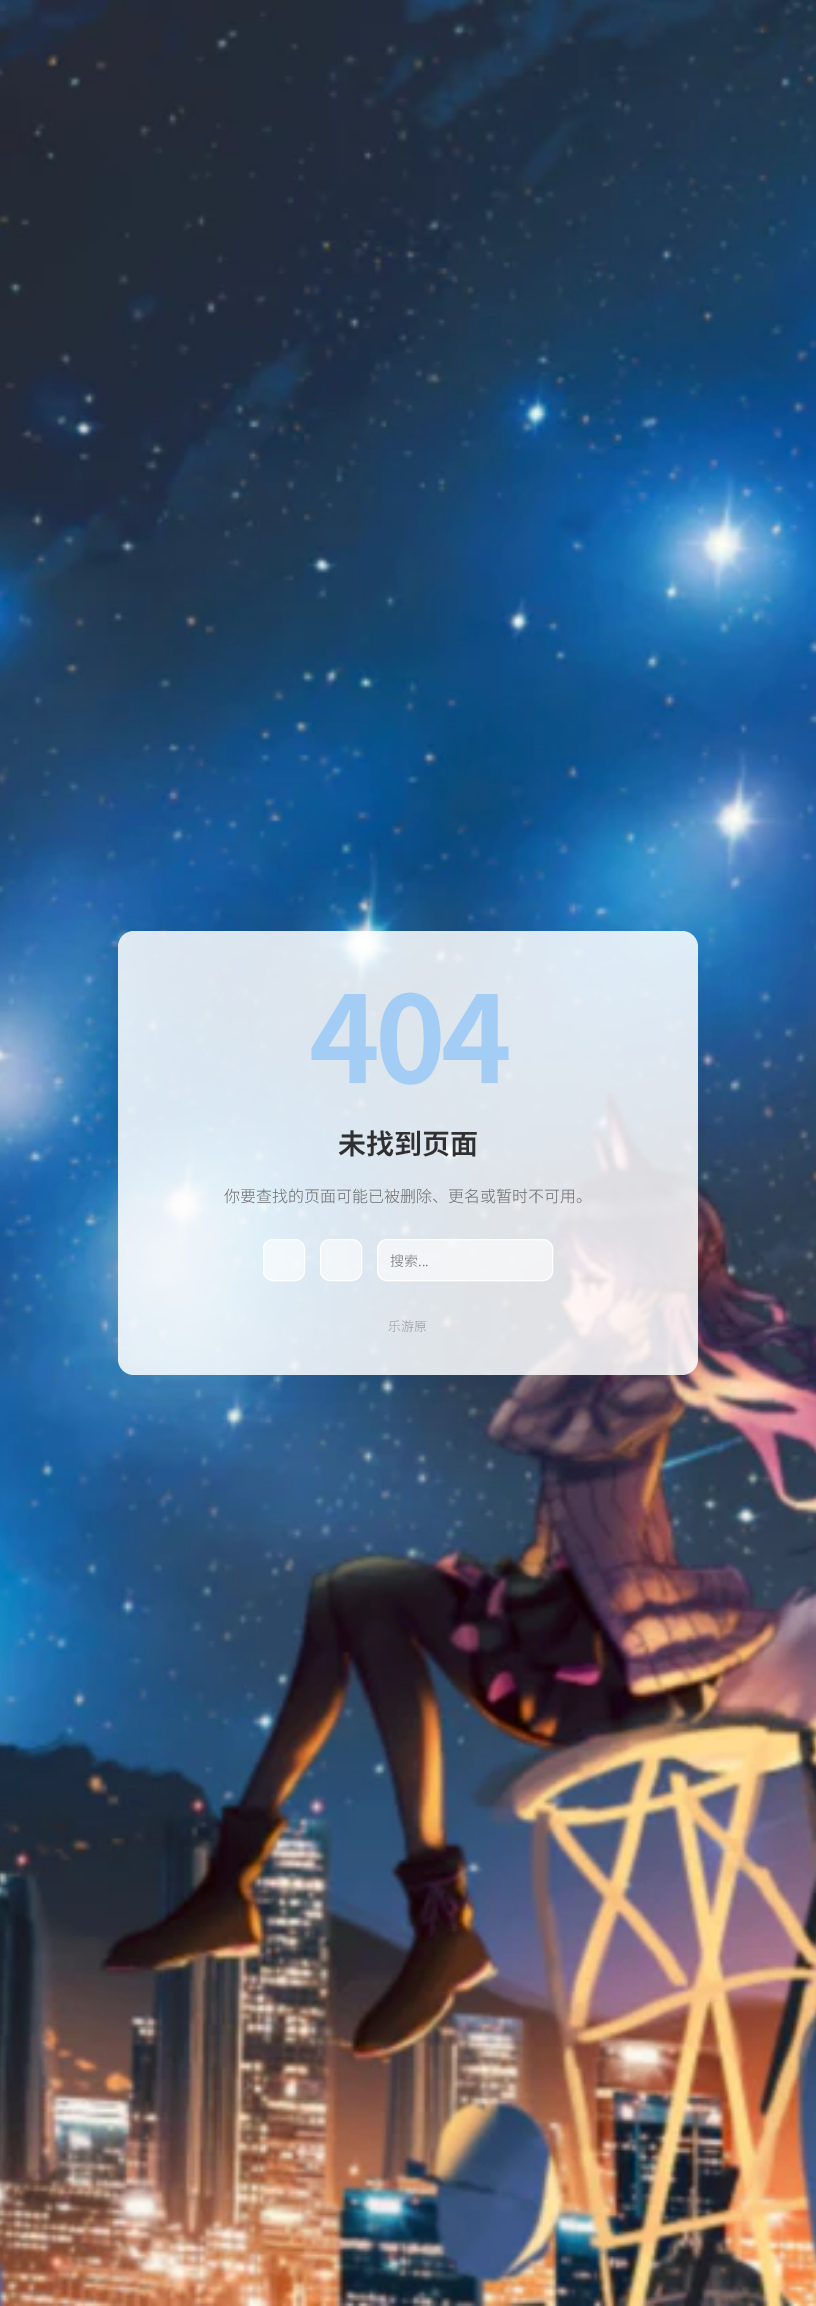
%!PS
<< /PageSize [816 2306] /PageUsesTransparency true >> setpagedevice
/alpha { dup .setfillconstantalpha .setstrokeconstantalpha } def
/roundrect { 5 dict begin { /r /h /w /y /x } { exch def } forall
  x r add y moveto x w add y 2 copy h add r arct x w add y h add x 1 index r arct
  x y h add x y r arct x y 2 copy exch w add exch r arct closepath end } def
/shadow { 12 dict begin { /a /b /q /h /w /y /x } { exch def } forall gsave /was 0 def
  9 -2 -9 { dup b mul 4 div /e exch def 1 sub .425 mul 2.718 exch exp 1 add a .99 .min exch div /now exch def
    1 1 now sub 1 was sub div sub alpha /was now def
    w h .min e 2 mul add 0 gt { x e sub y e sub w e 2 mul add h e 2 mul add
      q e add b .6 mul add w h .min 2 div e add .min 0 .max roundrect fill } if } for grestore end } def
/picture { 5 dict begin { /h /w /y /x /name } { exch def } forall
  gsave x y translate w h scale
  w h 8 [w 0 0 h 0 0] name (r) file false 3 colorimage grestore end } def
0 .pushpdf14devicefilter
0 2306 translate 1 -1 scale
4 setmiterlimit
1 setgray
0 0 816 2306 rectfill
(img1.rgb) 0 0 816 2306 picture
gsave
newpath 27 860 moveto 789 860 lineto 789 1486 lineto 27 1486 lineto closepath 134 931 moveto 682 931 lineto 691 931 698 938 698 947 curveto 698 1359 lineto 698 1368 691 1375 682 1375 curveto 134 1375 lineto 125 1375 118 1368 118 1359 curveto 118 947 lineto 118 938 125 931 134 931 curveto closepath eoclip newpath
0 setgray
118 951 580 444 16 30 0.08 shadow
grestore
0.85 alpha
118 931 580 444 16 roundrect fill
/NotoSansSC-Bold [120 0 0 -120 0 0] selectfont
1 alpha
0.643 0.804 0.965 setrgbcolor
309 1083 moveto -5 0 (404) ashow
/NotoSansSC-SemiBold [28 0 0 -28 0 0] selectfont
0.188 setgray
338 1154 moveto (未找到页面) show
/NotoSansSC-Light [16 0 0 -16 0 0] selectfont
0.4 setgray
224 1202 moveto (你要查找的页面可能已被删除、更名或暂时不可用。) show
0.6 alpha
1 setgray
263.5 1239.5 41 41 9.5 roundrect fill
1 alpha
263.5 1239.5 41 41 9.5 roundrect stroke
0.6 alpha
320.5 1239.5 41 41 9.5 roundrect fill
1 alpha
320.5 1239.5 41 41 9.5 roundrect stroke
0.6 alpha
377.5 1239.5 175 41 9.5 roundrect fill
1 alpha
377.5 1239.5 175 41 9.5 roundrect stroke
/NotoSansSC-Light [14 0 0 -14 0 0] selectfont
0.459 setgray
390 1266 moveto (搜索...) show
/NotoSansSC-Light [13 0 0 -13 0 0] selectfont
0.6 setgray
388 1331 moveto (乐游原) show
.poppdf14devicefilter showpage
